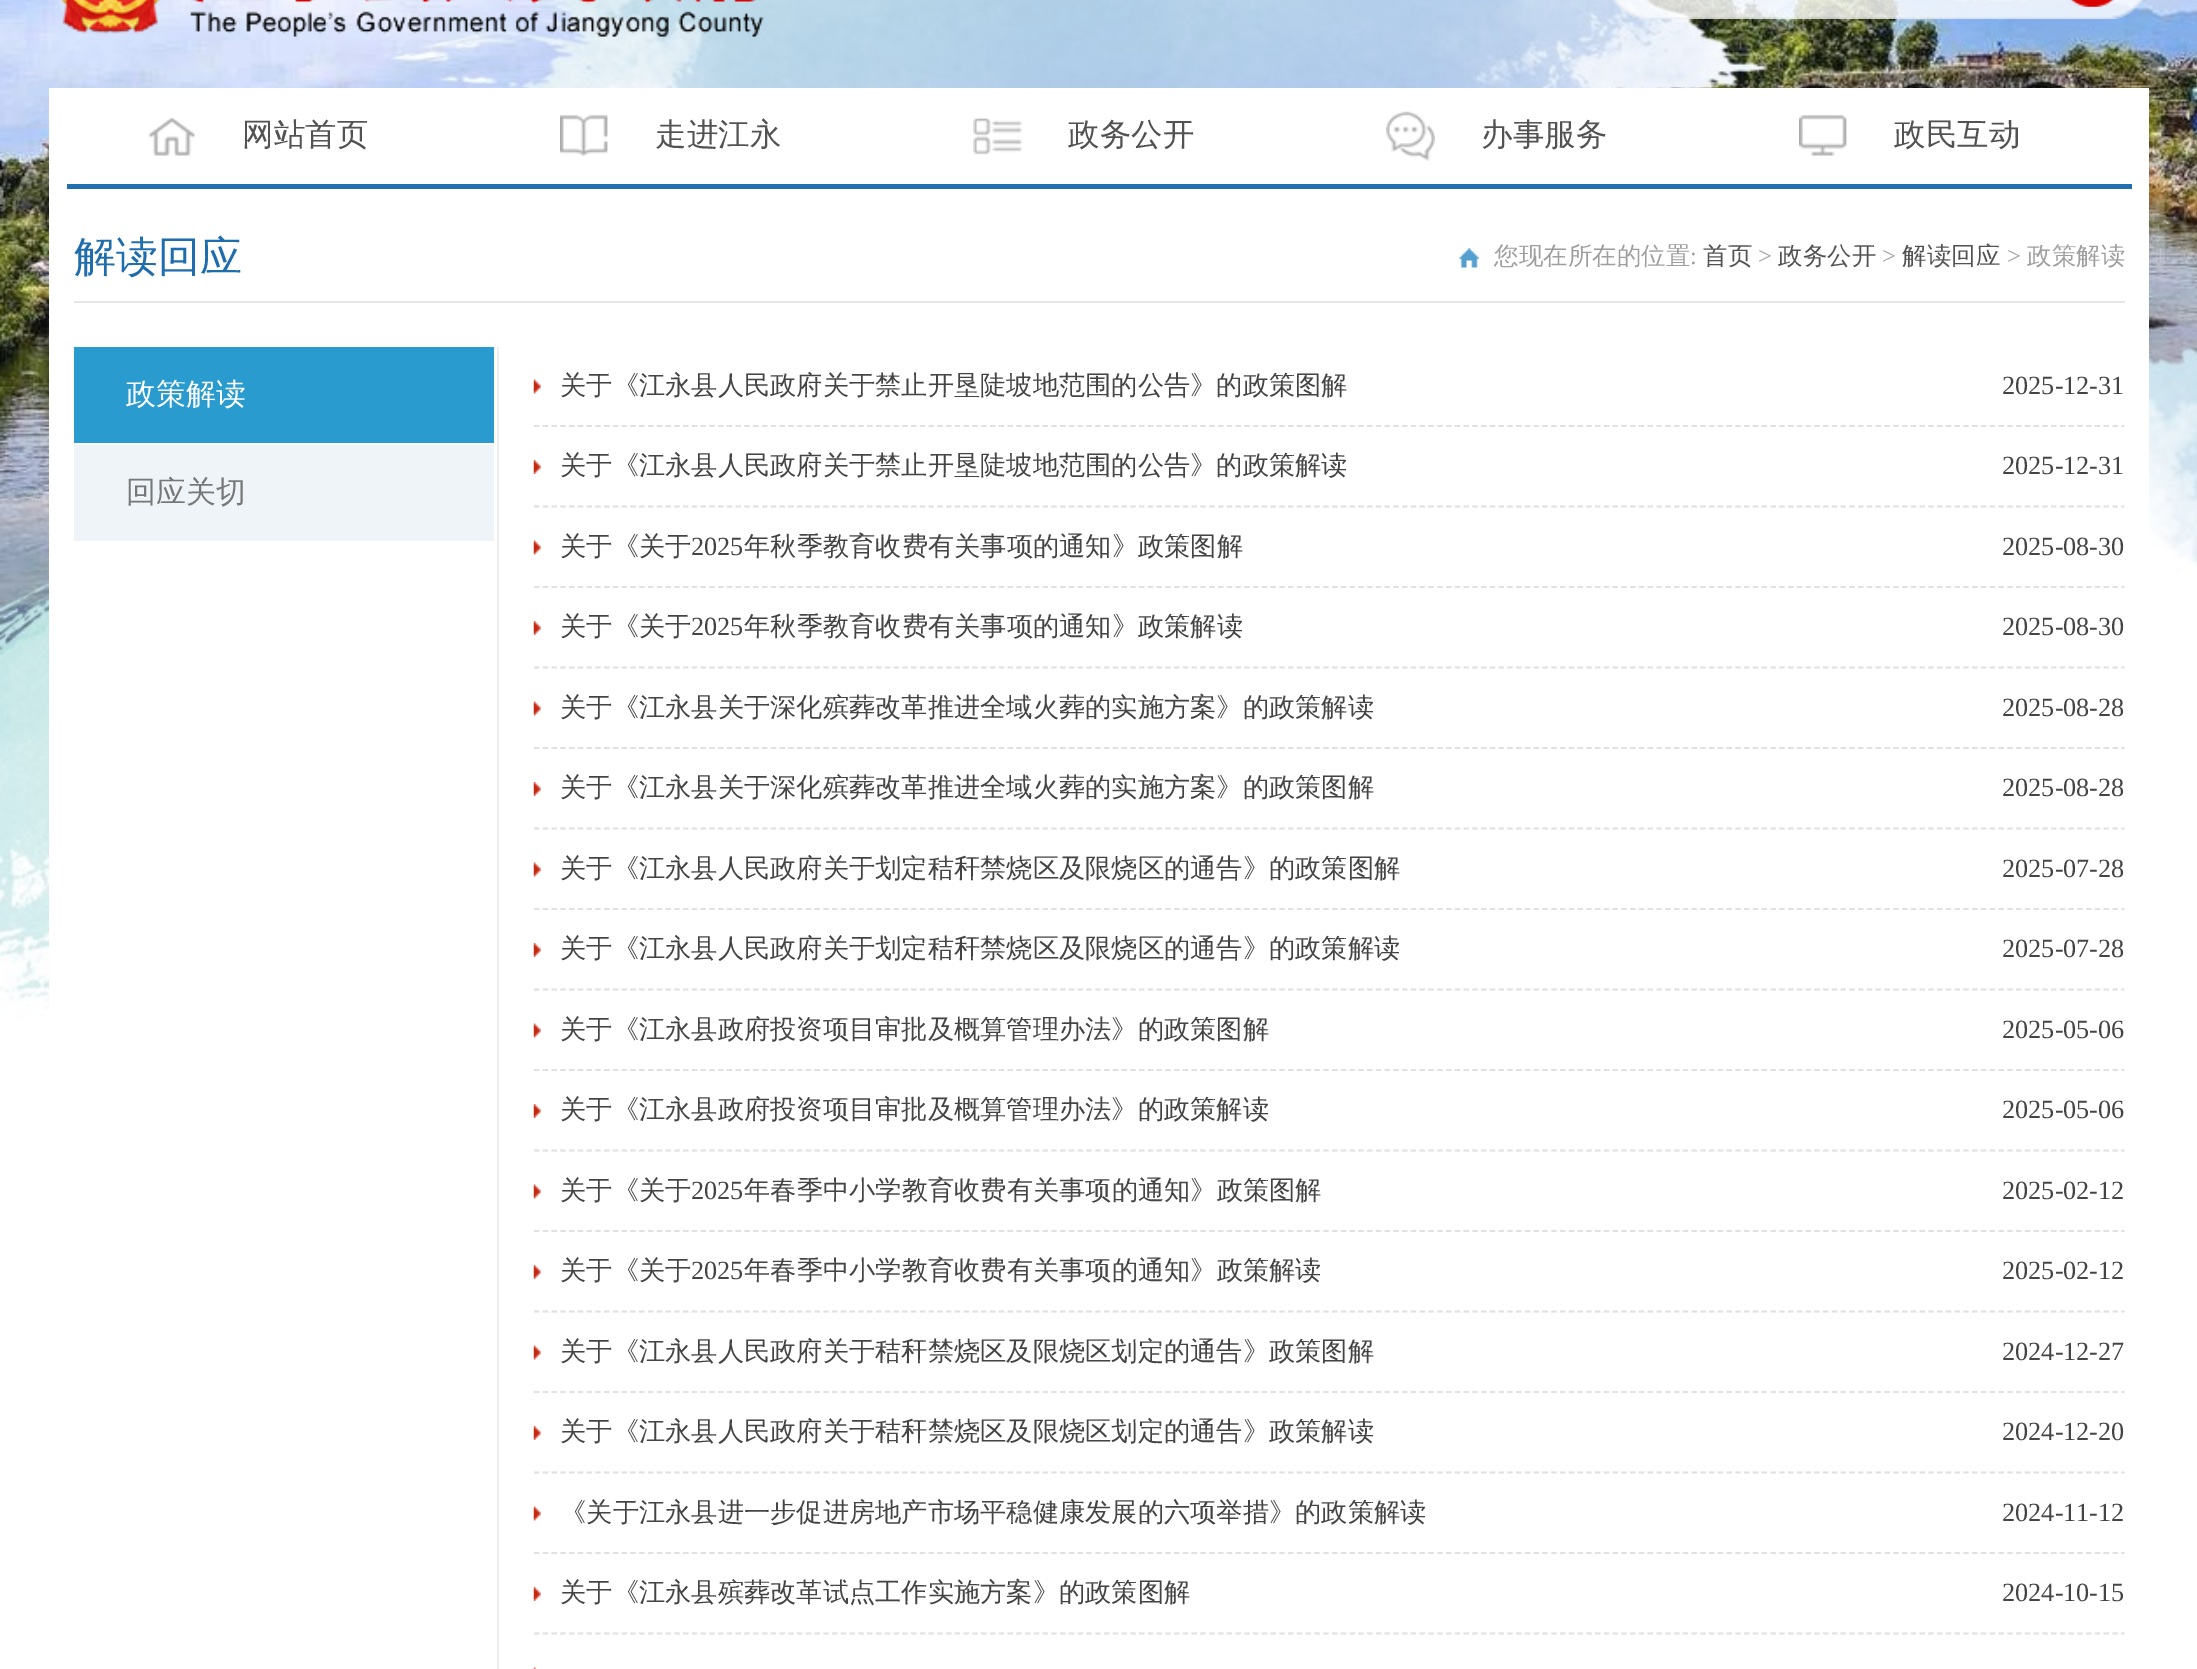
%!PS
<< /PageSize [2197 1669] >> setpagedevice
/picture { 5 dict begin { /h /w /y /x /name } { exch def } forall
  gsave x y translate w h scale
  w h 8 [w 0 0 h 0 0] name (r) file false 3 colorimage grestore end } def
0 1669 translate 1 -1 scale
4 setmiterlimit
1 setgray
0 0 2197 1669 rectfill
(img1.rgb) 0 0 2197 1062 picture
(img2.rgb) 61 0 703 37 picture
(img3.rgb) 1612 0 532 19 picture
(img4.rgb) 2070 0 45 7 picture
49 88 2100 974 rectfill
0.129 0.435 0.686 setrgbcolor
67 184 2065 5 rectfill
(img5.rgb) 148 117 47 39 picture
/WenQuanYiZenHei-Medium [31.5 0 0 -31.5 0 0] selectfont
0.322 setgray
242 145 moveto (网站首页) show
(img6.rgb) 560 114 48 42 picture
655 145 moveto (走进江永) show
(img7.rgb) 973 118 49 37 picture
1068 145 moveto (政务公开) show
(img8.rgb) 1386 111 49 50 picture
1481 145 moveto (办事服务) show
(img9.rgb) 1799 115 48 41 picture
1894 145 moveto (政民互动) show
0.898 setgray
74 301 2051 2 rectfill
/WenQuanYiZenHei-Medium [42 0 0 -42 0 0] selectfont
0.122 0.427 0.678 setrgbcolor
74 271 moveto (解读回应) show
(img10.rgb) 1459 248 20 20 picture
/WenQuanYiZenHei-Medium [24.5 0 0 -24.5 0 0] selectfont
0.62 setgray
1494 264 moveto (您现在所在的位置) show
/LiberationSerif-Regular [24.5 0 0 -24.5 0 0] selectfont
1690 264 moveto (:) show
/WenQuanYiZenHei-Medium [24.5 0 0 -24.5 0 0] selectfont
0.322 setgray
1703 264 moveto (首页) show
/LiberationSerif-Regular [24.5 0 0 -24.5 0 0] selectfont
0.62 setgray
1758 264 moveto (>) show
/WenQuanYiZenHei-Medium [24.5 0 0 -24.5 0 0] selectfont
0.322 setgray
1778 264 moveto (政务公开) show
/LiberationSerif-Regular [24.5 0 0 -24.5 0 0] selectfont
0.62 setgray
1882 264 moveto (>) show
/WenQuanYiZenHei-Medium [24.5 0 0 -24.5 0 0] selectfont
0.322 setgray
1902 264 moveto (解读回应) show
/LiberationSerif-Regular [24.5 0 0 -24.5 0 0] selectfont
0.62 setgray
2007 264 moveto (>) show
/WenQuanYiZenHei-Medium [24.5 0 0 -24.5 0 0] selectfont
2027 264 moveto (政策解读) show
0.161 0.608 0.812 setrgbcolor
74 347 420 96 rectfill
/WenQuanYiZenHei-Medium [30 0 0 -30 0 0] selectfont
1 setgray
126 404 moveto (政策解读) show
0.937 0.957 0.973 setrgbcolor
74 445 420 96 rectfill
0.467 setgray
126 502 moveto (回应关切) show
0.933 setgray
497 347 2 1322 rectfill
(img11.rgb) 533 379 8 15 picture
0.882 setgray
1.8 setlinewidth
[5.25 3.52] 0 setdash
newpath 534 426 moveto 2124.5 426 lineto stroke
/WenQuanYiZenHei-Medium [26.25 0 0 -26.25 0 0] selectfont
0.267 setgray
560 394 moveto (关于《江永县人民政府关于禁止开垦陡坡地范围的公告》的政策图解) show
/LiberationSerif-Regular [26.25 0 0 -26.25 0 0] selectfont
2002 394 moveto (2025-12-31) show
(img12.rgb) 533 460 8 14 picture
0.882 setgray
newpath 534 506.5 moveto 2124.5 506.5 lineto stroke
/WenQuanYiZenHei-Medium [26.25 0 0 -26.25 0 0] selectfont
0.267 setgray
560 474 moveto (关于《江永县人民政府关于禁止开垦陡坡地范围的公告》的政策解读) show
/LiberationSerif-Regular [26.25 0 0 -26.25 0 0] selectfont
2002 474 moveto (2025-12-31) show
(img11.rgb) 533 540 8 15 picture
0.882 setgray
newpath 534 587 moveto 2124.5 587 lineto stroke
/WenQuanYiZenHei-Medium [26.25 0 0 -26.25 0 0] selectfont
0.267 setgray
560 555 moveto (关于《关于) show
/LiberationSerif-Regular [26.25 0 0 -26.25 0 0] selectfont
691 555 moveto (2025) show
/WenQuanYiZenHei-Medium [26.25 0 0 -26.25 0 0] selectfont
744 555 moveto (年秋季教育收费有关事项的通知》政策图解) show
/LiberationSerif-Regular [26.25 0 0 -26.25 0 0] selectfont
2002 555 moveto (2025-08-30) show
(img12.rgb) 533 621 8 14 picture
0.882 setgray
newpath 534 667.5 moveto 2124.5 667.5 lineto stroke
/WenQuanYiZenHei-Medium [26.25 0 0 -26.25 0 0] selectfont
0.267 setgray
560 635 moveto (关于《关于) show
/LiberationSerif-Regular [26.25 0 0 -26.25 0 0] selectfont
691 635 moveto (2025) show
/WenQuanYiZenHei-Medium [26.25 0 0 -26.25 0 0] selectfont
744 635 moveto (年秋季教育收费有关事项的通知》政策解读) show
/LiberationSerif-Regular [26.25 0 0 -26.25 0 0] selectfont
2002 635 moveto (2025-08-30) show
(img11.rgb) 533 701 8 15 picture
0.882 setgray
newpath 534 748 moveto 2124.5 748 lineto stroke
/WenQuanYiZenHei-Medium [26.25 0 0 -26.25 0 0] selectfont
0.267 setgray
560 716 moveto (关于《江永县关于深化殡葬改革推进全域火葬的实施方案》的政策解读) show
/LiberationSerif-Regular [26.25 0 0 -26.25 0 0] selectfont
2002 716 moveto (2025-08-28) show
(img12.rgb) 533 782 8 14 picture
0.882 setgray
newpath 534 828.5 moveto 2124.5 828.5 lineto stroke
/WenQuanYiZenHei-Medium [26.25 0 0 -26.25 0 0] selectfont
0.267 setgray
560 796 moveto (关于《江永县关于深化殡葬改革推进全域火葬的实施方案》的政策图解) show
/LiberationSerif-Regular [26.25 0 0 -26.25 0 0] selectfont
2002 796 moveto (2025-08-28) show
(img11.rgb) 533 862 8 15 picture
0.882 setgray
newpath 534 909 moveto 2124.5 909 lineto stroke
/WenQuanYiZenHei-Medium [26.25 0 0 -26.25 0 0] selectfont
0.267 setgray
560 877 moveto (关于《江永县人民政府关于划定秸秆禁烧区及限烧区的通告》的政策图解) show
/LiberationSerif-Regular [26.25 0 0 -26.25 0 0] selectfont
2002 877 moveto (2025-07-28) show
(img12.rgb) 533 943 8 14 picture
0.882 setgray
newpath 534 989.5 moveto 2124.5 989.5 lineto stroke
/WenQuanYiZenHei-Medium [26.25 0 0 -26.25 0 0] selectfont
0.267 setgray
560 957 moveto (关于《江永县人民政府关于划定秸秆禁烧区及限烧区的通告》的政策解读) show
/LiberationSerif-Regular [26.25 0 0 -26.25 0 0] selectfont
2002 957 moveto (2025-07-28) show
(img11.rgb) 533 1023 8 15 picture
0.882 setgray
newpath 534 1070 moveto 2124.5 1070 lineto stroke
/WenQuanYiZenHei-Medium [26.25 0 0 -26.25 0 0] selectfont
0.267 setgray
560 1038 moveto (关于《江永县政府投资项目审批及概算管理办法》的政策图解) show
/LiberationSerif-Regular [26.25 0 0 -26.25 0 0] selectfont
2002 1038 moveto (2025-05-06) show
(img12.rgb) 533 1104 8 14 picture
0.882 setgray
newpath 534 1150.5 moveto 2124.5 1150.5 lineto stroke
/WenQuanYiZenHei-Medium [26.25 0 0 -26.25 0 0] selectfont
0.267 setgray
560 1118 moveto (关于《江永县政府投资项目审批及概算管理办法》的政策解读) show
/LiberationSerif-Regular [26.25 0 0 -26.25 0 0] selectfont
2002 1118 moveto (2025-05-06) show
(img11.rgb) 533 1184 8 15 picture
0.882 setgray
newpath 534 1231 moveto 2124.5 1231 lineto stroke
/WenQuanYiZenHei-Medium [26.25 0 0 -26.25 0 0] selectfont
0.267 setgray
560 1199 moveto (关于《关于) show
/LiberationSerif-Regular [26.25 0 0 -26.25 0 0] selectfont
691 1199 moveto (2025) show
/WenQuanYiZenHei-Medium [26.25 0 0 -26.25 0 0] selectfont
744 1199 moveto (年春季中小学教育收费有关事项的通知》政策图解) show
/LiberationSerif-Regular [26.25 0 0 -26.25 0 0] selectfont
2002 1199 moveto (2025-02-12) show
(img12.rgb) 533 1265 8 14 picture
0.882 setgray
newpath 534 1311.5 moveto 2124.5 1311.5 lineto stroke
/WenQuanYiZenHei-Medium [26.25 0 0 -26.25 0 0] selectfont
0.267 setgray
560 1279 moveto (关于《关于) show
/LiberationSerif-Regular [26.25 0 0 -26.25 0 0] selectfont
691 1279 moveto (2025) show
/WenQuanYiZenHei-Medium [26.25 0 0 -26.25 0 0] selectfont
744 1279 moveto (年春季中小学教育收费有关事项的通知》政策解读) show
/LiberationSerif-Regular [26.25 0 0 -26.25 0 0] selectfont
2002 1279 moveto (2025-02-12) show
(img11.rgb) 533 1345 8 15 picture
0.882 setgray
newpath 534 1392 moveto 2124.5 1392 lineto stroke
/WenQuanYiZenHei-Medium [26.25 0 0 -26.25 0 0] selectfont
0.267 setgray
560 1360 moveto (关于《江永县人民政府关于秸秆禁烧区及限烧区划定的通告》政策图解) show
/LiberationSerif-Regular [26.25 0 0 -26.25 0 0] selectfont
2002 1360 moveto (2024-12-27) show
(img12.rgb) 533 1426 8 14 picture
0.882 setgray
newpath 534 1472.5 moveto 2124.5 1472.5 lineto stroke
/WenQuanYiZenHei-Medium [26.25 0 0 -26.25 0 0] selectfont
0.267 setgray
560 1440 moveto (关于《江永县人民政府关于秸秆禁烧区及限烧区划定的通告》政策解读) show
/LiberationSerif-Regular [26.25 0 0 -26.25 0 0] selectfont
2002 1440 moveto (2024-12-20) show
(img11.rgb) 533 1506 8 15 picture
0.882 setgray
newpath 534 1553 moveto 2124.5 1553 lineto stroke
/WenQuanYiZenHei-Medium [26.25 0 0 -26.25 0 0] selectfont
0.267 setgray
560 1521 moveto (《关于江永县进一步促进房地产市场平稳健康发展的六项举措》的政策解读) show
/LiberationSerif-Regular [26.25 0 0 -26.25 0 0] selectfont
2002 1521 moveto (2024-11-12) show
(img13.rgb) 533 1587 8 14 picture
0.882 setgray
newpath 534 1633.5 moveto 2124.5 1633.5 lineto stroke
/WenQuanYiZenHei-Medium [26.25 0 0 -26.25 0 0] selectfont
0.267 setgray
560 1601 moveto (关于《江永县殡葬改革试点工作实施方案》的政策图解) show
/LiberationSerif-Regular [26.25 0 0 -26.25 0 0] selectfont
2002 1601 moveto (2024-10-15) show
(img14.rgb) 533 1667 4 2 picture
showpage
